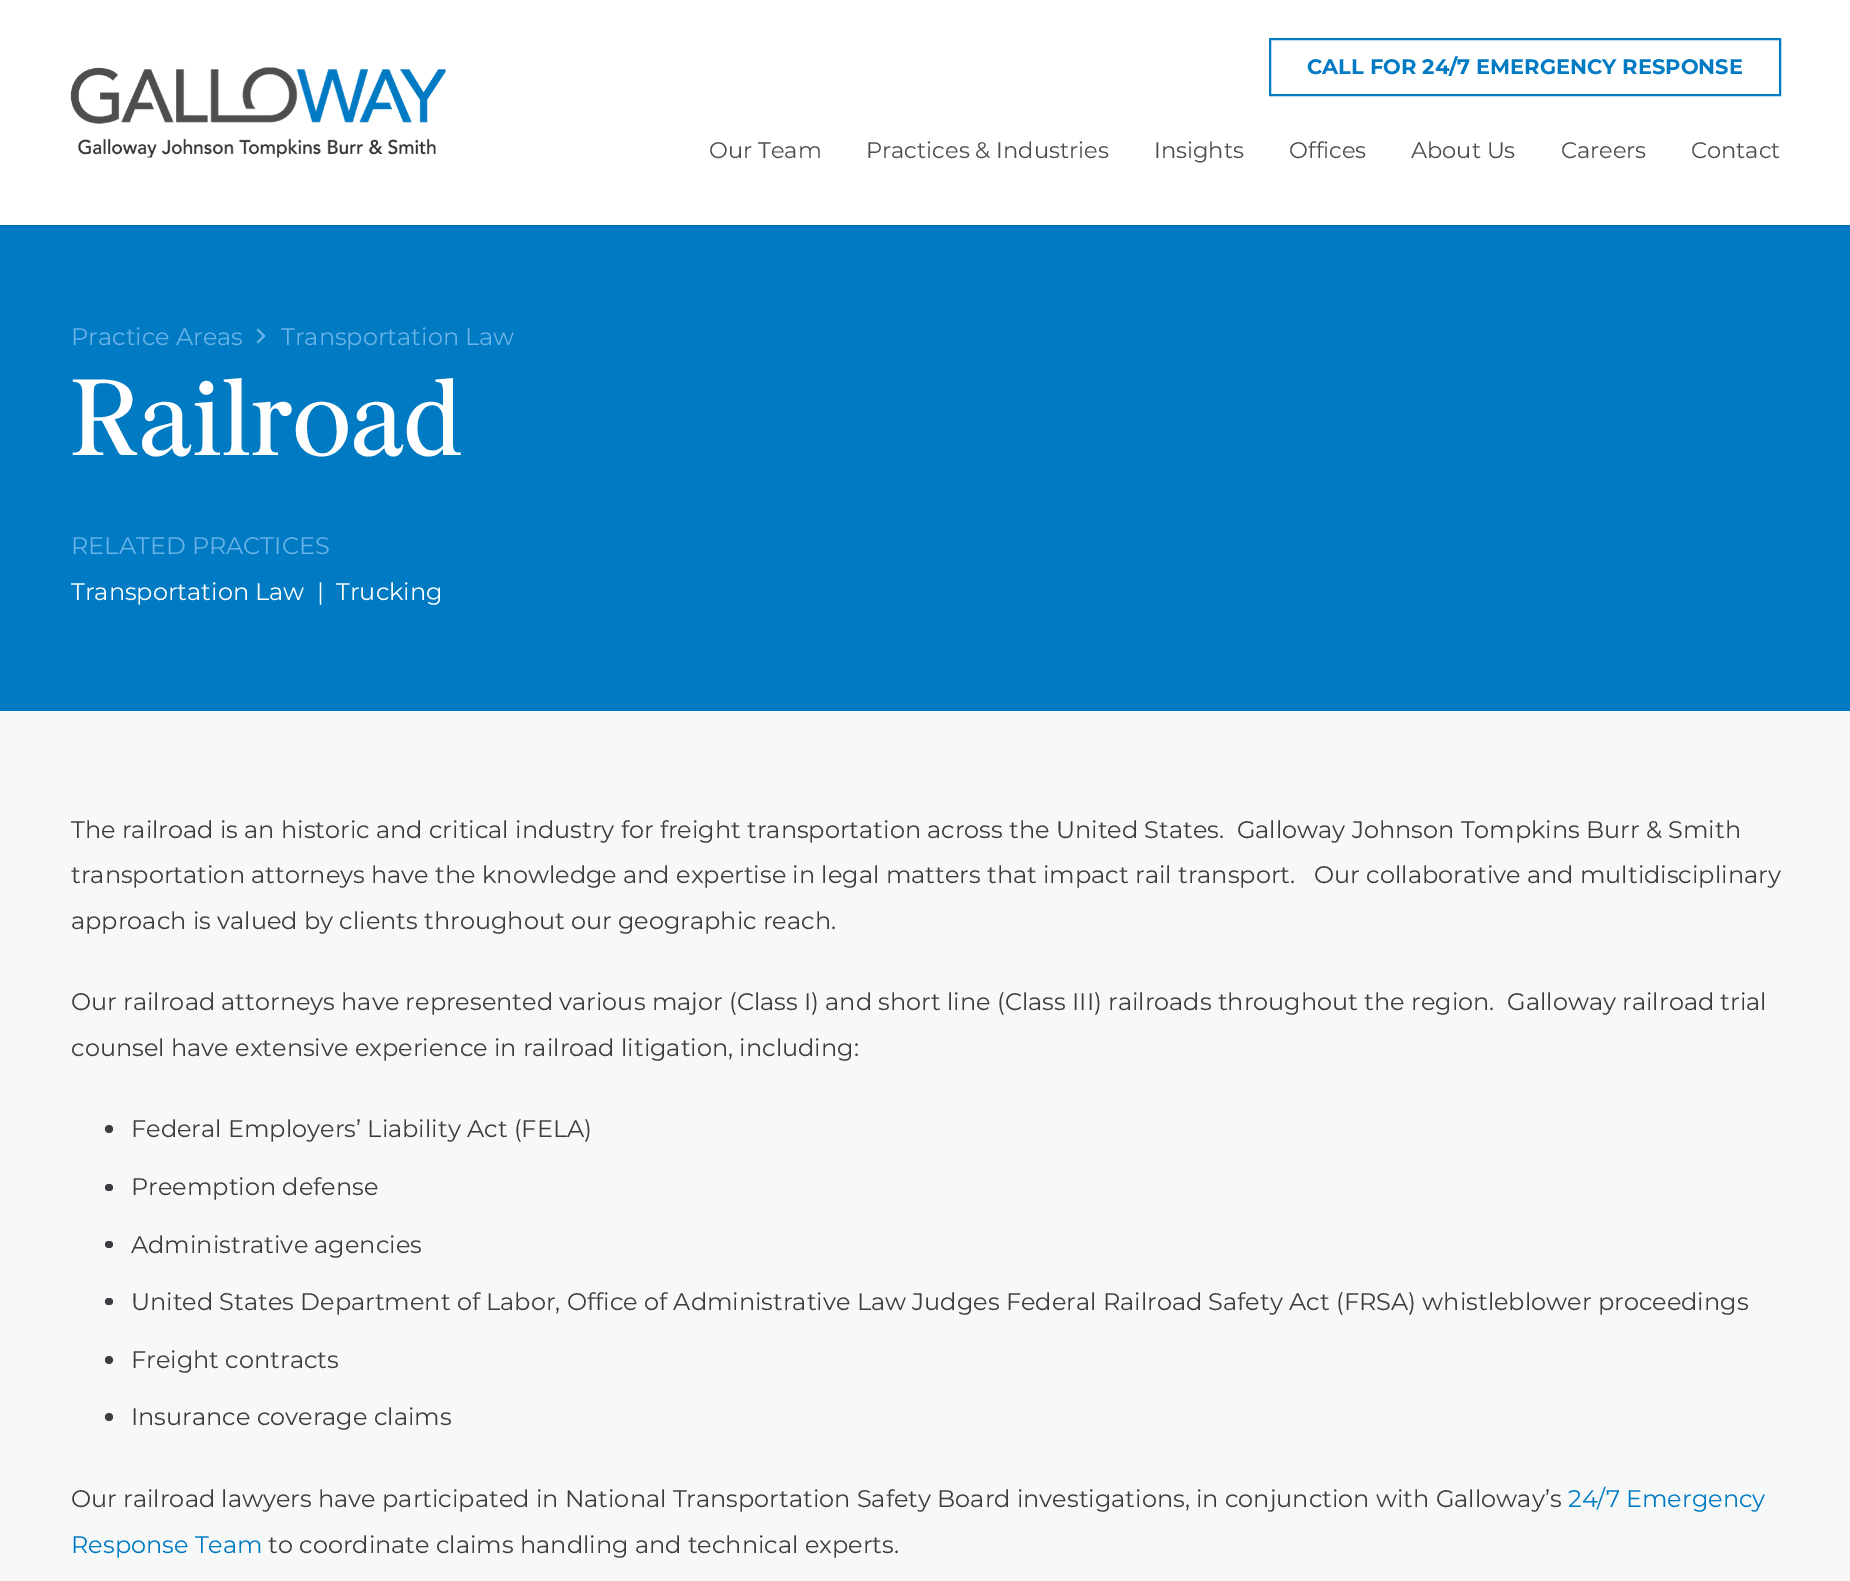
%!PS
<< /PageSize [1850 1581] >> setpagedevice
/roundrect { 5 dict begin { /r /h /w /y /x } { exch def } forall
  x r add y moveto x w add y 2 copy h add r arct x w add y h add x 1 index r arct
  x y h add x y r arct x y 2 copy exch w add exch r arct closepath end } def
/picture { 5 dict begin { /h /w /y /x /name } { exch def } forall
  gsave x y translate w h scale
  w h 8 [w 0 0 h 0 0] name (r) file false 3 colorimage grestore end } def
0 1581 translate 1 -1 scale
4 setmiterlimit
0.969 0.976 0.976 setrgbcolor
0 0 1850 1581 rectfill
0 0.439 0.698 setrgbcolor
0 225 1850 2 rectfill
1 setgray
0 0 1850 225 rectfill
(img1.rgb) 70 67 376 91 picture
0 0.478 0.761 setrgbcolor
2 setlinewidth
1270 39 510 56 rectstroke
/Montserrat-Bold [21 0 0 -21 0 0] selectfont
1307 74 moveto (CALL FOR 24/7 EMERGENCY RESPONSE) show
/Montserrat-Regular [22.5 0 0 -22.5 0 0] selectfont
0.302 setgray
709 158 moveto (Our Team) show
866 158 moveto (Practices & Industries) show
1154 158 moveto (Insights) show
1289 158 moveto (Offices) show
1411 158 moveto (About Us) show
1561 158 moveto (Careers) show
1691 158 moveto (Contact) show
0 0.478 0.761 setrgbcolor
0 227 1850 484 rectfill
/Montserrat-Regular [24 0 0 -24 0 0] selectfont
0.408 0.702 0.906 setrgbcolor
71 345 moveto (Practice Areas) show
(img2.rgb) 256 328 10 16 picture
281 345 moveto (Transportation Law) show
/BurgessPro-Regular [108 0 0 -108 0 0] selectfont
1 setgray
71 455 moveto (Railroad) show
/Montserrat-Regular [24 0 0 -24 0 0] selectfont
0.408 0.702 0.906 setrgbcolor
71 554 moveto (RELATED PRACTICES) show
1 setgray
71 600 moveto (Transportation Law) show
317 600 moveto (|) show
336 600 moveto (Trucking) show
0.231 0.239 0.251 setrgbcolor
71 838 moveto (The railroad is an historic and critical industry for freight transportation across the United States.  Galloway Johnson Tompkins Burr & Smith) show
71 883 moveto (transportation attorneys have the knowledge and expertise in legal matters that impact rail transport.   Our collaborative and multidisciplinary) show
71 929 moveto (approach is valued by clients throughout our geographic reach.) show
71 1010 moveto (Our railroad attorneys have represented various major \(Class I\) and short line \(Class III\) railroads throughout the region.  Galloway railroad trial) show
71 1056 moveto (counsel have extensive experience in railroad litigation, including:) show
newpath 109 1129 4 0 360 arc closepath fill
131 1137 moveto (Federal Employers’ Liability Act \(FELA\)) show
105 1184 8 7 3.5 roundrect fill
131 1195 moveto (Preemption defense) show
105 1241 8 7 3.5 roundrect fill
131 1253 moveto (Administrative agencies) show
105 1298 8 7 3.5 roundrect fill
131 1310 moveto (United States Department of Labor, Office of Administrative Law Judges Federal Railroad Safety Act \(FRSA\) whistleblower proceedings) show
newpath 109 1360 4 0 360 arc closepath fill
131 1368 moveto (Freight contracts) show
newpath 109 1417 4 0 360 arc closepath fill
131 1425 moveto (Insurance coverage claims) show
71 1507 moveto (Our railroad lawyers have participated in National Transportation Safety Board investigations, in conjunction with Galloway’s) show
0 0.478 0.761 setrgbcolor
1568 1507 moveto (24/7 Emergency) show
71 1553 moveto (Response Team) show
0.231 0.239 0.251 setrgbcolor
268 1553 moveto (to coordinate claims handling and technical experts.) show
showpage
